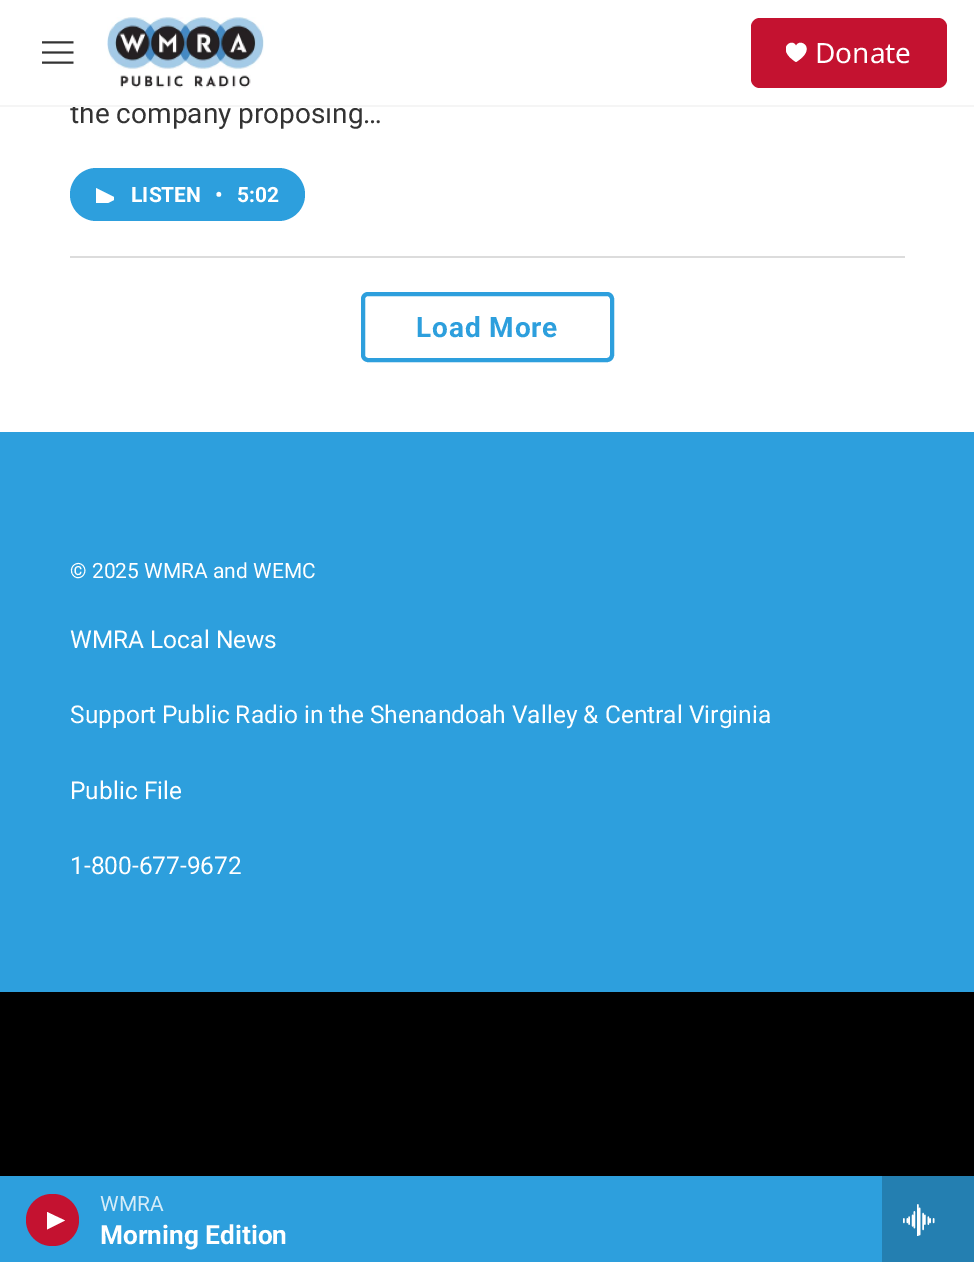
%!PS
<< /PageSize [974 1262] >> setpagedevice
/roundrect { 5 dict begin { /r /h /w /y /x } { exch def } forall
  x r add y moveto x w add y 2 copy h add r arct x w add y h add x 1 index r arct
  x y h add x y r arct x y 2 copy exch w add exch r arct closepath end } def
/picture { 5 dict begin { /h /w /y /x /name } { exch def } forall
  gsave x y translate w h scale
  w h 8 [w 0 0 h 0 0] name (r) file false 3 colorimage grestore end } def
0 1262 translate 1 -1 scale
4 setmiterlimit
1 setgray
0 0 974 1262 rectfill
/Roboto-Regular [28 0 0 -28 0 0] selectfont
0.2 setgray
70 123 moveto (the company proposing…) show
1 setgray
72 102 259 3 rectfill
0.961 setgray
0 105 974 2 rectfill
(img1.rgb) 42 41 32 23 picture
(img2.rgb) 107 17 157 71 picture
0.769 0.071 0.188 setrgbcolor
751 18 196 70 9 roundrect fill
gsave
786 42 21 21 rectclip
1 setgray
newpath 796 46 moveto 793 37 774.5 48.5 796 62 curveto 818 48.5 799.5 37 796 46 curveto closepath fill
grestore
/NotoSans-Regular [28 0 0 -28 0 0] selectfont
1 setgray
815 63 moveto (Donate) show
0.176 0.624 0.867 setrgbcolor
0 1176 882 86 rectfill
0.769 0.071 0.188 setrgbcolor
26 1194 53 52 26 roundrect fill
1 setgray
newpath 47 1212 moveto 65 1220.5 lineto 47 1229.5 lineto closepath fill
/Roboto-Regular [21 0 0 -21 0 0] selectfont
0.835 0.925 0.973 setrgbcolor
100 1211 moveto (WMRA) show
/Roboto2-Bold [26.25 0 0 -26.25 0 0] selectfont
1 setgray
100 1244 moveto (Morning Edition) show
0.141 0.498 0.694 setrgbcolor
882 1176 92 86 rectfill
(img3.rgb) 903 1204 32 32 picture
0.863 setgray
70 256 835 2 rectfill
0.176 0.624 0.867 setrgbcolor
70 168 235 53 26.5 roundrect fill
gsave
96 186 18 17 rectclip
1 setgray
newpath 96 188 moveto 117 198.5 lineto 96 209 lineto closepath fill
grestore
/Roboto2-Bold [21 0 0 -21 0 0] selectfont
1 setgray
131 202 moveto (LISTEN) show
215 202 moveto (•) show
237 202 moveto (5:02) show
0.176 0.624 0.867 setrgbcolor
4 setlinewidth
363 294 249 66 5 roundrect stroke
/Roboto-Bold [28 0 0 -28 0 0] selectfont
416 337 moveto 0.9 0 (Load More) ashow
0 432 974 560 rectfill
/Roboto-Regular [21 0 0 -21 0 0] selectfont
1 setgray
70 578 moveto (© 2025 WMRA and WEMC) show
/Roboto-Regular [24.5 0 0 -24.5 0 0] selectfont
70 648 moveto (WMRA Local News) show
70 723 moveto (Support Public Radio in the Shenandoah Valley & Central Virginia) show
70 799 moveto (Public File) show
70 874 moveto (1-800-677-9672) show
0 setgray
0 992 974 184 rectfill
showpage
